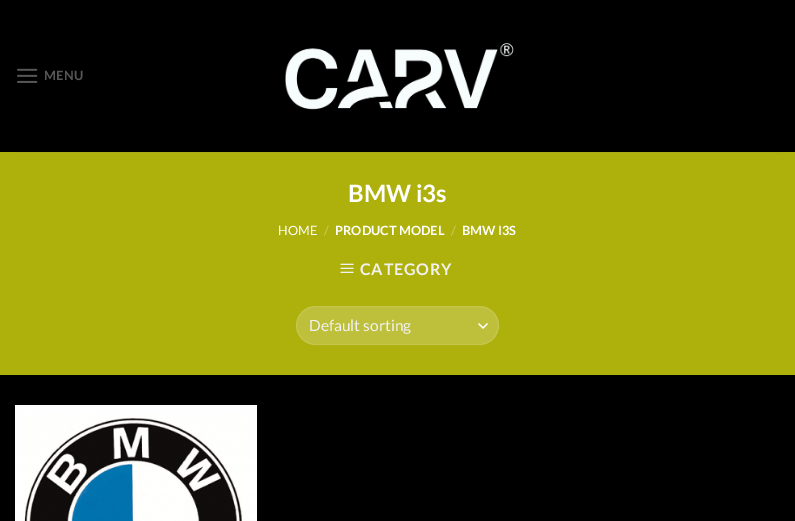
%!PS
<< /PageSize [795 521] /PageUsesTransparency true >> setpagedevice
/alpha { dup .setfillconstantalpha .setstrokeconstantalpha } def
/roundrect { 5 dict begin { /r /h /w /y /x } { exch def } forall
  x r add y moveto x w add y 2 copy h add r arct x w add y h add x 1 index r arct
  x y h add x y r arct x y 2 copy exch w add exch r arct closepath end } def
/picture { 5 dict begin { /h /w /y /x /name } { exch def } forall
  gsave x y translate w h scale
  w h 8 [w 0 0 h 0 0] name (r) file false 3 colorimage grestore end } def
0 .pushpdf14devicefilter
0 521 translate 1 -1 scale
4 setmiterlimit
0 setgray
0 0 795 521 rectfill
(img1.rgb) 17 68 21 15 picture
/Lato-Bold [12.75 0 0 -12.75 0 0] selectfont
0.341 setgray
44 80 moveto 0.5 0 (MENU) ashow
(img2.rgb) 285 43 229 67 picture
0.682 0.69 0.043 setrgbcolor
0 152 795 223 rectfill
0.659 0.667 0.086 setrgbcolor
15 152 765 1 rectfill
/Lato-Bold [24 0 0 -24 0 0] selectfont
1 setgray
348 202 moveto (BMW i3s) show
/Lato-Regular [12.75 0 0 -12.75 0 0] selectfont
278 235 moveto (HOME) show
0.792 0.8 0.376 setrgbcolor
324 235 moveto (/) show
/Lato-Bold [12.75 0 0 -12.75 0 0] selectfont
1 setgray
335 235 moveto (PRODUCT MODEL) show
/Lato-Regular [12.75 0 0 -12.75 0 0] selectfont
0.792 0.8 0.376 setrgbcolor
451 235 moveto (/) show
/Lato-Bold [12.75 0 0 -12.75 0 0] selectfont
1 setgray
462 235 moveto (BMW I3S) show
(img3.rgb) 340 263 14 10 picture
/Lato-Bold [16 0 0 -16 0 0] selectfont
0.945 setgray
360 275 moveto 0.75 0 (CATEGORY) ashow
0.745 0.753 0.235 setrgbcolor
296 306 203 39 19.5 roundrect fill
1 setgray
1.3 setlinewidth
1 setlinecap
1 setlinejoin
newpath 479 324 moveto 483 328 lineto 487 324 lineto stroke
0.09 alpha
1 setlinewidth
0 setlinecap
0 setlinejoin
296.5 306.5 202 38 19 roundrect stroke
/Lato-Regular [15.5 0 0 -15.5 0 0] selectfont
1 alpha
0.945 setgray
309 331 moveto (Default sorting) show
(img4.rgb) 15 405 242 116 picture
.poppdf14devicefilter showpage
